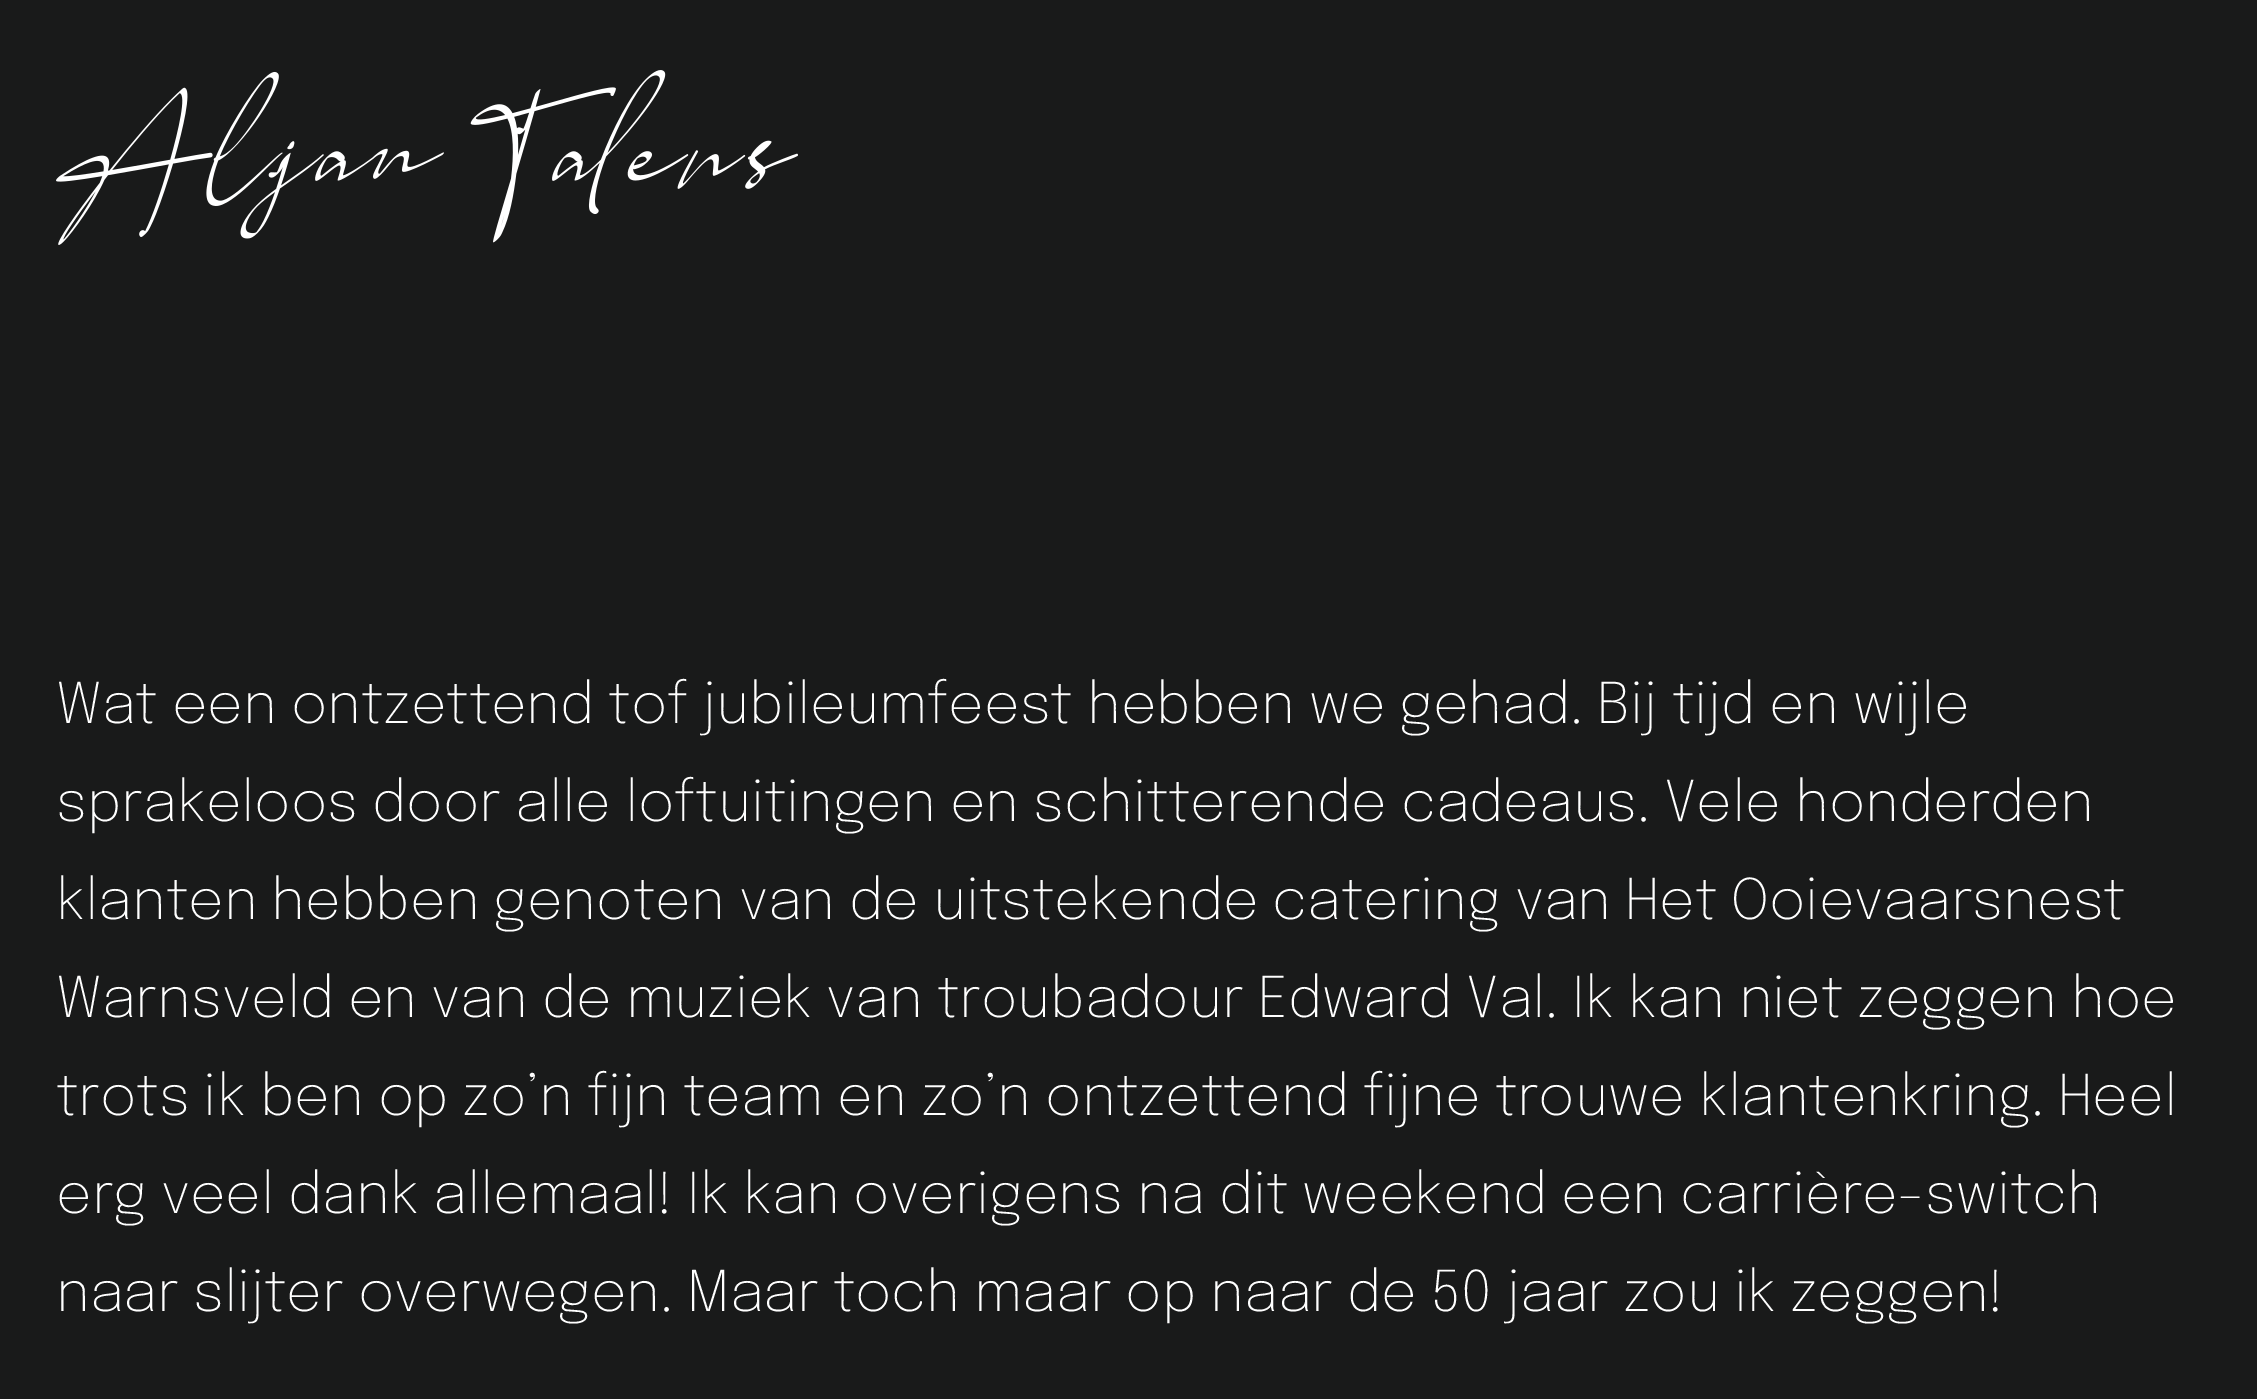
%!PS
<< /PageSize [2257 1399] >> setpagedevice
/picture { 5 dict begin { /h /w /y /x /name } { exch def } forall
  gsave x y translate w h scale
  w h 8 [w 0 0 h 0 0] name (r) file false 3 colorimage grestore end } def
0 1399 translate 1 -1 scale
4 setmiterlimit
0.098 0.102 0.102 setrgbcolor
0 0 2257 1399 rectfill
(img1.rgb) 56 70 742 175 picture
/Epilogue-ExtraLight [56 0 0 -56 0 0] selectfont
1 setgray
56 723 moveto (Wat een ontzettend tof jubileumfeest hebben we gehad. Bij tijd en wijle) show
56 821 moveto (sprakeloos door alle loftuitingen en schitterende cadeaus. Vele honderden) show
56 919 moveto (klanten hebben genoten van de uitstekende catering van Het Ooievaarsnest) show
56 1017 moveto (Warnsveld en van de muziek van troubadour Edward Val. Ik kan niet zeggen hoe) show
56 1115 moveto (trots ik ben op zo’n fijn team en zo’n ontzettend fijne trouwe klantenkring. Heel) show
56 1213 moveto (erg veel dank allemaal! Ik kan overigens na dit weekend een carrière-switch) show
56 1311 moveto (naar slijter overwegen. Maar toch maar op naar de 50 jaar zou ik zeggen!) show
showpage
